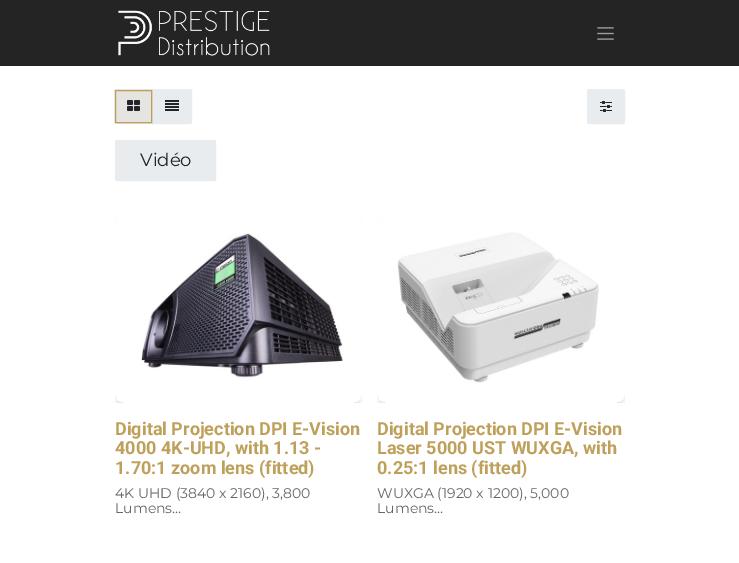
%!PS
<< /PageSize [739 563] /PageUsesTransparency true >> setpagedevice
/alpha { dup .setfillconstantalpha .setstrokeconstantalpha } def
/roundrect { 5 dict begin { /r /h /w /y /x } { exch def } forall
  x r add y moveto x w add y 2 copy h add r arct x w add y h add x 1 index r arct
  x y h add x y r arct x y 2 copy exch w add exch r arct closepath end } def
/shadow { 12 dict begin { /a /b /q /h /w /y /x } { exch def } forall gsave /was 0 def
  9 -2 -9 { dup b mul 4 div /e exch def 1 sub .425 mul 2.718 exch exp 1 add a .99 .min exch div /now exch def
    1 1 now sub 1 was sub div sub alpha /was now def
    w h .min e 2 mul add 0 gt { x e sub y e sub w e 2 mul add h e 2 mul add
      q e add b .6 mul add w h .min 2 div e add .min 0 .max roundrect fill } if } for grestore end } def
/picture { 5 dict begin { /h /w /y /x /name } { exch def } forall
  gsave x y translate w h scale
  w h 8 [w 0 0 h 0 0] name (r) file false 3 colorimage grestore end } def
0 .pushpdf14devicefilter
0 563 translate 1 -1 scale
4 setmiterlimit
1 setgray
0 0 739 563 rectfill
0.141 setgray
0 0 739 66 rectfill
(img1.rgb) 118 10 152 46 picture
(img2.rgb) 597 27 17 13 picture
0.914 0.925 0.937 setrgbcolor
newpath 152.5 89.5 moveto 190 89.5 lineto 191 89.5 191.5 90 191.5 91 curveto 191.5 122 lineto 191.5 123 191 123.5 190 123.5 curveto 152.5 123.5 lineto closepath gsave fill grestore
stroke
0.898 0.894 0.878 setrgbcolor
newpath 116 89 moveto 153 89 lineto 153 124 lineto 116 124 lineto 115 124 114 123 114 122 curveto 114 91 lineto 114 90 115 89 116 89 curveto closepath fill
0.745 0.627 0.353 setrgbcolor
newpath 116 90.5 moveto 151.5 90.5 lineto 151.5 122.5 lineto 116 122.5 lineto 115.5 122.5 115.5 122.5 115.5 122 curveto 115.5 91 lineto 115.5 90.5 115.5 90.5 116 90.5 curveto closepath stroke
(img3.rgb) 127 100 13 11 picture
(img4.rgb) 165 100 14 11 picture
0.914 0.925 0.937 setrgbcolor
587.5 89.5 37 34 1.5 roundrect gsave fill grestore
stroke
(img5.rgb) 600 101 12 11 picture
115.5 140.5 100 40 1.5 roundrect gsave fill grestore
stroke
/Montserrat-Regular [18 0 0 -18 0 0] selectfont
0.129 0.145 0.161 setrgbcolor
140 166 moveto (Vidéo) show
gsave
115 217 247 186 rectclip
newpath 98 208 moveto 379 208 lineto 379 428 lineto 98 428 lineto closepath 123 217 moveto 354 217 lineto 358.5 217 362 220.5 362 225 curveto 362 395 lineto 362 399.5 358.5 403 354 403 curveto 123 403 lineto 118.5 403 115 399.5 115 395 curveto 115 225 lineto 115 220.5 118.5 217 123 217 curveto closepath eoclip newpath
0 setgray
123 233 231 170 0 8 0.28 shadow
grestore
(img6.rgb) 141 233 202 145 picture
/Roboto-Bold [18 0 0 -18 0 0] selectfont
0.745 0.627 0.353 setrgbcolor
115 435 moveto (Digital Projection DPI E-Vision) show
115 454 moveto (4000 4K-UHD, with 1.13 -) show
115 474 moveto (1.70:1 zoom lens \(fitted\)) show
/Montserrat-Regular [14 0 0 -14 0 0] selectfont
0.392 0.4 0.412 setrgbcolor
115 498 moveto (4K UHD \(3840 x 2160\), 3,800) show
115 513 moveto (Lumens…) show
gsave
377 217 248 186 rectclip
newpath 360 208 moveto 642 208 lineto 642 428 lineto 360 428 lineto closepath 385 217 moveto 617 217 lineto 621.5 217 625 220.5 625 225 curveto 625 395 lineto 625 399.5 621.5 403 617 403 curveto 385 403 lineto 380.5 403 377 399.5 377 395 curveto 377 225 lineto 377 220.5 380.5 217 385 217 curveto closepath eoclip newpath
0 setgray
385 233 232 170 0 8 0.28 shadow
grestore
(img7.rgb) 397 232 202 151 picture
/Roboto-Bold [18 0 0 -18 0 0] selectfont
0.745 0.627 0.353 setrgbcolor
377 435 moveto (Digital Projection DPI E-Vision) show
377 454 moveto (Laser 5000 UST WUXGA, with) show
377 474 moveto (0.25:1 lens \(fitted\)) show
/Montserrat-Regular [14 0 0 -14 0 0] selectfont
0.392 0.4 0.412 setrgbcolor
377 498 moveto (WUXGA \(1920 x 1200\), 5,000) show
377 513 moveto (Lumens…) show
.poppdf14devicefilter showpage
